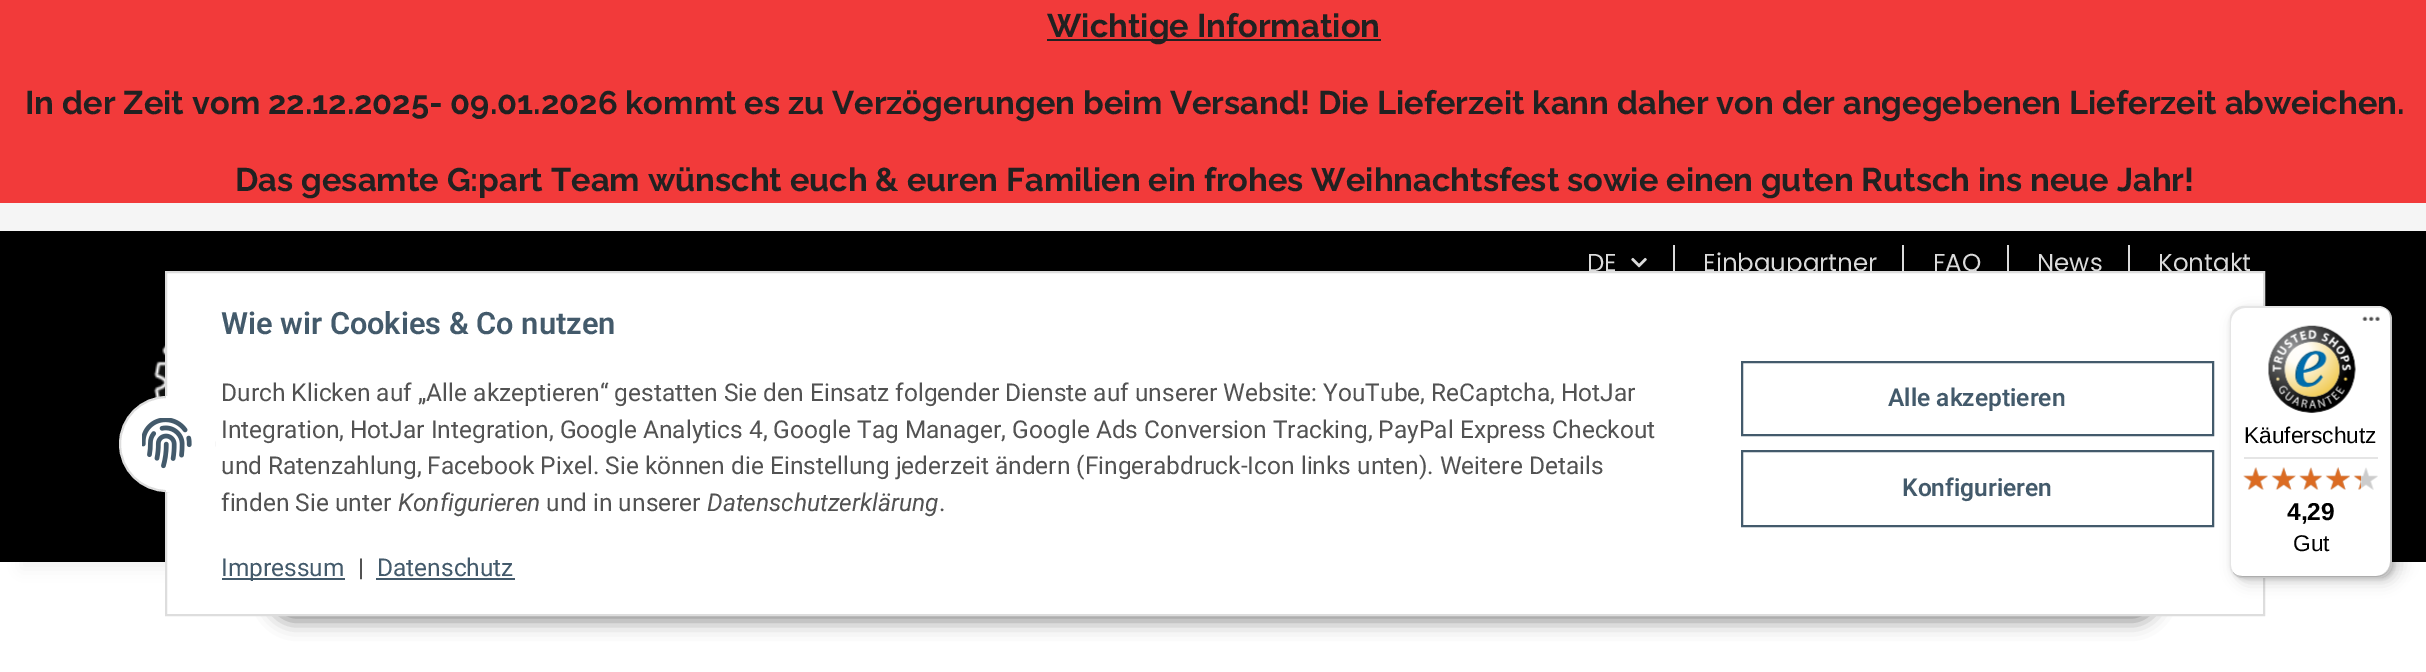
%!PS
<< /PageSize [2426 672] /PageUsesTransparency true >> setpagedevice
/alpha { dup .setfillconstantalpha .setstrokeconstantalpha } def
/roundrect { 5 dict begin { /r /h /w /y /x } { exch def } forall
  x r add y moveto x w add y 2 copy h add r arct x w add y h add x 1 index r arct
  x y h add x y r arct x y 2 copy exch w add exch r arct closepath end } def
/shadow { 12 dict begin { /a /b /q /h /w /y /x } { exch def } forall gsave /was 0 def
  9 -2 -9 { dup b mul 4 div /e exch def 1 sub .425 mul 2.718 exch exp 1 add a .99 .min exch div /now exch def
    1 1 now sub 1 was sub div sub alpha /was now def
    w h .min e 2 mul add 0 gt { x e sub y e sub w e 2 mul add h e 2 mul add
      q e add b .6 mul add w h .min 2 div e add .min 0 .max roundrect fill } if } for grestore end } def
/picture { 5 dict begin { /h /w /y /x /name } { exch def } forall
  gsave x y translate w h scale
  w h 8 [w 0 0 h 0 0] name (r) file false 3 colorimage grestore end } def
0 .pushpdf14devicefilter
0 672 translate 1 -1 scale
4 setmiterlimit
0.961 setgray
0 0 2426 672 rectfill
0.949 0.227 0.227 setrgbcolor
0 0 2426 203 rectfill
0.129 setgray
1047 39 334 2 rectfill
/Raleway-Bold [32.67 0 0 -32.67 0 0] selectfont
1047 37 moveto (Wichtige Information) show
25 114 moveto (In der Zeit vom 22.12.2025- 09.01.2026 kommt es zu Verzögerungen beim Versand! Die Lieferzeit kann daher von der angegebenen Lieferzeit abweichen.) show
235 191 moveto (Das gesamte G:part Team wünscht euch & euren Familien ein frohes Weihnachtsfest sowie einen guten Rutsch ins neue Jahr!) show
1 setgray
0 562 2426 110 rectfill
0 setgray
21 280 2385 289 0 8 0.06 shadow
0 231 2426 331 rectfill
/Poppins-Regular [24.5 0 0 -24.5 0 0] selectfont
0.859 setgray
1587 271 moveto (DE) show
(img1.rgb) 1631 257 16 11 picture
1673 245 2 26 rectfill
1703 271 moveto (Einbaupartner) show
1902 245 2 26 rectfill
1933 271 moveto (FAQ) show
2007 245 2 26 rectfill
2037 271 moveto (News) show
2128 245 2 26 rectfill
2158 271 moveto (Kontakt) show
(img2.rgb) 153 345 12 53 picture
0 setgray
270 565 1888 56 28 9 0.45 shadow
1 setgray
newpath 166 272 moveto 2264 272 lineto 2264 615 lineto 166 615 lineto closepath gsave fill grestore
0.867 setgray
2 setlinewidth
stroke
1 setgray
newpath 167 444 47 0 360 arc closepath gsave fill grestore
0.867 setgray
stroke
1 setgray
166 396 49 96 rectfill
(img3.rgb) 142 418 50 51 picture
/Roboto-SemiBold [30.75 0 0 -30.75 0 0] selectfont
0.263 0.353 0.42 setrgbcolor
221 334 moveto (Wie wir Cookies & Co nutzen) show
/Roboto-Regular [24.5 0 0 -24.5 0 0] selectfont
0.322 setgray
221 401 moveto (Durch Klicken auf „Alle akzeptieren“ gestatten Sie den Einsatz folgender Dienste auf unserer Website: YouTube, ReCaptcha, HotJar) show
221 438 moveto (Integration, HotJar Integration, Google Analytics 4, Google Tag Manager, Google Ads Conversion Tracking, PayPal Express Checkout) show
221 474 moveto (und Ratenzahlung, Facebook Pixel. Sie können die Einstellung jederzeit ändern \(Fingerabdruck-Icon links unten\). Weitere Details) show
221 511 moveto (finden Sie unter) show
/Roboto-Italic [24.5 0 0 -24.5 0 0] selectfont
398 511 moveto (Konfigurieren) show
/Roboto-Regular [24.5 0 0 -24.5 0 0] selectfont
546 511 moveto (und in unserer) show
/Roboto-Italic [24.5 0 0 -24.5 0 0] selectfont
707 511 moveto (Datenschutzerklärung) show
/Roboto-Regular [24.5 0 0 -24.5 0 0] selectfont
939 511 moveto (.) show
0.263 0.353 0.42 setrgbcolor
222 578 123 2 rectfill
221 576 moveto (Impressum) show
0.322 setgray
358 576 moveto (|) show
0.263 0.353 0.42 setrgbcolor
377 576 moveto (Datenschutz) show
376 578 139 2 rectfill
1742 362 471 73 rectstroke
/Roboto-SemiBold [24.5 0 0 -24.5 0 0] selectfont
1888 406 moveto (Alle akzeptieren) show
1742 451 471 75 rectstroke
1902 496 moveto (Konfigurieren) show
0 setgray
2235 312 163 271 14 7 0.15 shadow
2231 308 163 271 14 2 0.15 shadow
1 setgray
2230 306 162 272 14 roundrect fill
0.1 alpha
0 setgray
newpath 2245 308 moveto 2380 308 lineto 2383 308 2386 309 2388 311 curveto 2386 308 2382 306 2378 306 curveto 2244 306 lineto 2236 306 2230 312 2230 320 curveto 2230 564 lineto 2230 569 2232 573 2236 575 curveto 2233 573 2231 569 2231 565 curveto 2231 322 lineto 2231 314 2238 308 2245 308 curveto closepath fill
0.2 alpha
newpath 2233 572 moveto 2235 576 2239 578 2244 578 curveto 2378 578 lineto 2386 578 2392 572 2392 564 curveto 2392 320 lineto 2392 315 2390 311 2386 309 curveto 2389 311 2390 315 2390 318 curveto 2390 562 lineto 2390 569 2384 576 2376 576 curveto 2242 576 lineto 2238 576 2235 575 2233 572 curveto closepath fill
0.196 setgray
newpath 2233 572 moveto 2235 576 2239 578 2244 578 curveto 2378 578 lineto 2386 578 2392 572 2392 564 curveto 2392 320 lineto 2392 316 2391 313 2388 311 curveto 2390 313 2391 316 2391 319 curveto 2391 562 lineto 2391 570 2385 576 2377 576 curveto 2242 576 lineto 2239 576 2235 575 2233 572 curveto closepath fill
0.3 alpha
1 setgray
newpath 2233 572 moveto 2235 576 2239 578 2244 578 curveto 2378 578 lineto 2386 578 2392 572 2392 564 curveto 2392 320 lineto 2392 315 2390 311 2387 309 curveto 2389 312 2391 315 2391 319 curveto 2391 563 lineto 2391 570 2385 577 2377 577 curveto 2243 577 lineto 2239 577 2235 575 2233 572 curveto closepath fill
1 alpha
(img4.rgb) 2362 316 18 5 picture
(img5.rgb) 2268 325 88 88 picture
/LiberationSans-Regular [22.75 0 0 -22.75 0 0] selectfont
0 setgray
2244 443 moveto (Käuferschutz) show
0.898 setgray
2244 457 134 2 rectfill
(img6.rgb) 2243 467 25 23 picture
(img7.rgb) 2272 467 24 23 picture
(img8.rgb) 2299 468 23 22 picture
(img9.rgb) 2326 467 24 23 picture
(img10.rgb) 2354 467 24 23 picture
(img11.rgb) 2243 467 25 23 picture
(img12.rgb) 2271 467 25 23 picture
(img13.rgb) 2299 467 24 23 picture
(img14.rgb) 2325 467 25 23 picture
(img15.rgb) 2353 475 8 15 picture
/LiberationSans-Bold [24.5 0 0 -24.5 0 0] selectfont
0 setgray
2287 520 moveto (4,29) show
/LiberationSans-Regular [22.75 0 0 -22.75 0 0] selectfont
2293 551 moveto (Gut) show
.poppdf14devicefilter showpage
